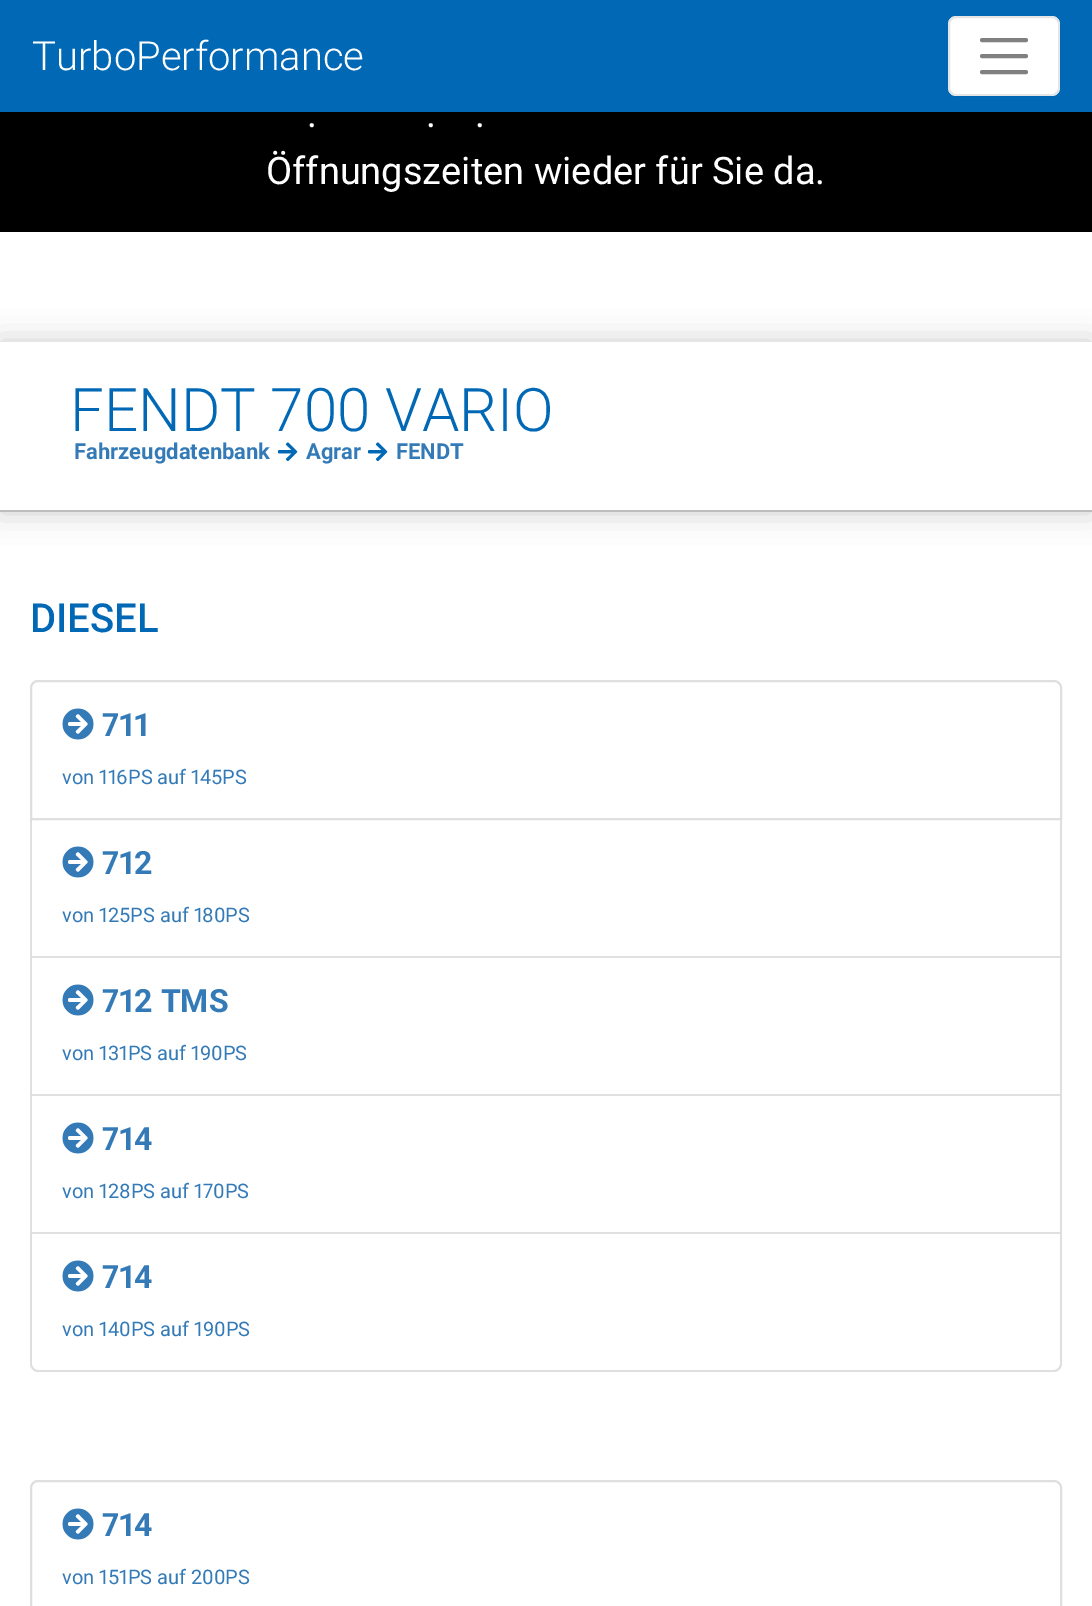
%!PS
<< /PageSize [1092 1606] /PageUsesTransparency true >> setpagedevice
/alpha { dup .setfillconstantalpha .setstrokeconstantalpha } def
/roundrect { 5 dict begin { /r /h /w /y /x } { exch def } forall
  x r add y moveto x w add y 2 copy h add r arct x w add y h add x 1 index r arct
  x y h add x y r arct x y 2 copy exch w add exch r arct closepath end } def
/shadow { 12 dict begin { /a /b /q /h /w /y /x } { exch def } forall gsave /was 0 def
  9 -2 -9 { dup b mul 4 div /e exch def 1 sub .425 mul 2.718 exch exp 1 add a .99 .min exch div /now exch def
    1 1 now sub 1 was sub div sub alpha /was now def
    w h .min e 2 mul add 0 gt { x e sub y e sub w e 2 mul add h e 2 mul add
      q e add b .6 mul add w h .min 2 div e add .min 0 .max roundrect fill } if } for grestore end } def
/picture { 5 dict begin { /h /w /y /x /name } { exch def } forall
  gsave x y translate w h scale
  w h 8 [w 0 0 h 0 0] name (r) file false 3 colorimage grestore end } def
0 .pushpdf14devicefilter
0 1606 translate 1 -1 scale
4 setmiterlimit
1 setgray
0 0 1092 1606 rectfill
0 0.408 0.706 setrgbcolor
0 0 1092 112 rectfill
/Roboto-Light [40 0 0 -40 0 0] selectfont
1 setgray
32 70 moveto (TurboPerformance) show
948 16 112 80 8 roundrect fill
0.1 alpha
0 setgray
2 setlinewidth
949 17 110 78 7 roundrect stroke
1 alpha
0.502 setgray
4 setlinewidth
1 setlinecap
newpath 982 40 moveto 1026 40 lineto 982 56 moveto 1026 56 lineto 982 72 moveto 1026 72 lineto stroke
gsave
newpath 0 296 moveto 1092 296 lineto 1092 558 lineto 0 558 lineto closepath 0 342 moveto 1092 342 lineto 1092 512 lineto 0 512 lineto closepath eoclip newpath
0 setgray
0 342 1092 170 0 15 0.2 shadow
grestore
0.745 setgray
0 510 1092 2 rectfill
/Roboto-Light [60 0 0 -60 0 0] selectfont
0 0.408 0.706 setrgbcolor
70 431 moveto (FENDT 700 VARIO) show
/Roboto-Bold [22 0 0 -22 0 0] selectfont
0.2 0.478 0.718 setrgbcolor
74 459 moveto (Fahrzeugdatenbank) show
(img1.rgb) 278 442 20 20 picture
306 459 moveto (Agrar) show
(img1.rgb) 368 442 20 20 picture
396 459 moveto (FENDT) show
/Roboto-Medium [40 0 0 -40 0 0] selectfont
0 0.408 0.706 setrgbcolor
30 632 moveto (DIESEL) show
0.875 setgray
2 setlinewidth
0 setlinecap
newpath 38 681 moveto 1054 681 lineto 1058 681 1061 684 1061 688 curveto 1061 819 lineto 31 819 lineto 31 688 lineto 31 684 34 681 38 681 curveto closepath stroke
(img2.rgb) 62 708 32 32 picture
/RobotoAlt-Bold [32 0 0 -32 0 0] selectfont
0.2 0.478 0.718 setrgbcolor
102 736 moveto (711) show
/RobotoAlt-Regular [20 0 0 -20 0 0] selectfont
62 784 moveto (von 116PS auf 145PS) show
0.875 setgray
newpath 1062 820 moveto 1062 958 lineto 1060 956 lineto 1060 820 lineto closepath fill
0.12 alpha
0 setgray
newpath 1062 958 moveto 30 958 lineto 32 956 lineto 1060 956 lineto closepath fill
newpath 30 958 moveto 30 820 lineto 32 820 lineto 32 956 lineto closepath fill
1 alpha
(img2.rgb) 62 846 32 32 picture
/RobotoAlt-Bold [32 0 0 -32 0 0] selectfont
0.2 0.478 0.718 setrgbcolor
102 874 moveto (712) show
/RobotoAlt-Regular [20 0 0 -20 0 0] selectfont
62 922 moveto (von 125PS auf 180PS) show
0.875 setgray
newpath 1062 958 moveto 1062 1096 lineto 1060 1094 lineto 1060 958 lineto closepath fill
0.12 alpha
0 setgray
newpath 1062 1096 moveto 30 1096 lineto 32 1094 lineto 1060 1094 lineto closepath fill
newpath 30 1096 moveto 30 958 lineto 32 958 lineto 32 1094 lineto closepath fill
1 alpha
(img2.rgb) 62 984 32 32 picture
/RobotoAlt-Bold [32 0 0 -32 0 0] selectfont
0.2 0.478 0.718 setrgbcolor
102 1012 moveto (712 TMS) show
/RobotoAlt-Regular [20 0 0 -20 0 0] selectfont
62 1060 moveto (von 131PS auf 190PS) show
0.875 setgray
newpath 1062 1096 moveto 1062 1234 lineto 1060 1232 lineto 1060 1096 lineto closepath fill
0.12 alpha
0 setgray
newpath 1062 1234 moveto 30 1234 lineto 32 1232 lineto 1060 1232 lineto closepath fill
newpath 30 1234 moveto 30 1096 lineto 32 1096 lineto 32 1232 lineto closepath fill
1 alpha
(img2.rgb) 62 1122 32 32 picture
/RobotoAlt-Bold [32 0 0 -32 0 0] selectfont
0.2 0.478 0.718 setrgbcolor
102 1150 moveto (714) show
/RobotoAlt-Regular [20 0 0 -20 0 0] selectfont
62 1198 moveto (von 128PS auf 170PS) show
0.875 setgray
newpath 30 1234 moveto 1062 1234 lineto 1062 1364 lineto 1062 1368 1058 1372 1054 1372 curveto 38 1372 lineto 34 1372 30 1368 30 1364 curveto closepath 32 1234 moveto 1060 1234 lineto 1060 1364 lineto 1060 1367 1057 1370 1054 1370 curveto 38 1370 lineto 35 1370 32 1367 32 1364 curveto closepath eofill
(img2.rgb) 62 1260 32 32 picture
/RobotoAlt-Bold [32 0 0 -32 0 0] selectfont
0.2 0.478 0.718 setrgbcolor
102 1288 moveto (714) show
/RobotoAlt-Regular [20 0 0 -20 0 0] selectfont
62 1336 moveto (von 140PS auf 190PS) show
0.875 setgray
newpath 38 1481 moveto 1054 1481 lineto 1058 1481 1061 1484 1061 1488 curveto 1061 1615 lineto 31 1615 lineto 31 1488 lineto 31 1484 34 1481 38 1481 curveto closepath stroke
(img2.rgb) 62 1508 32 32 picture
/RobotoAlt-Bold [32 0 0 -32 0 0] selectfont
0.2 0.478 0.718 setrgbcolor
102 1536 moveto (714) show
/RobotoAlt-Regular [20 0 0 -20 0 0] selectfont
62 1584 moveto (von 151PS auf 200PS) show
0 setgray
0 112 1092 120 rectfill
/RobotoAlt-Regular [38 0 0 -38 0 0] selectfont
1 setgray
307 127 moveto (.) show
426 127 moveto (.) show
475 127 moveto (.) show
/Roboto-Regular [38 0 0 -38 0 0] selectfont
266 184 moveto (Öffnungszeiten wieder für Sie da.) show
.poppdf14devicefilter showpage
